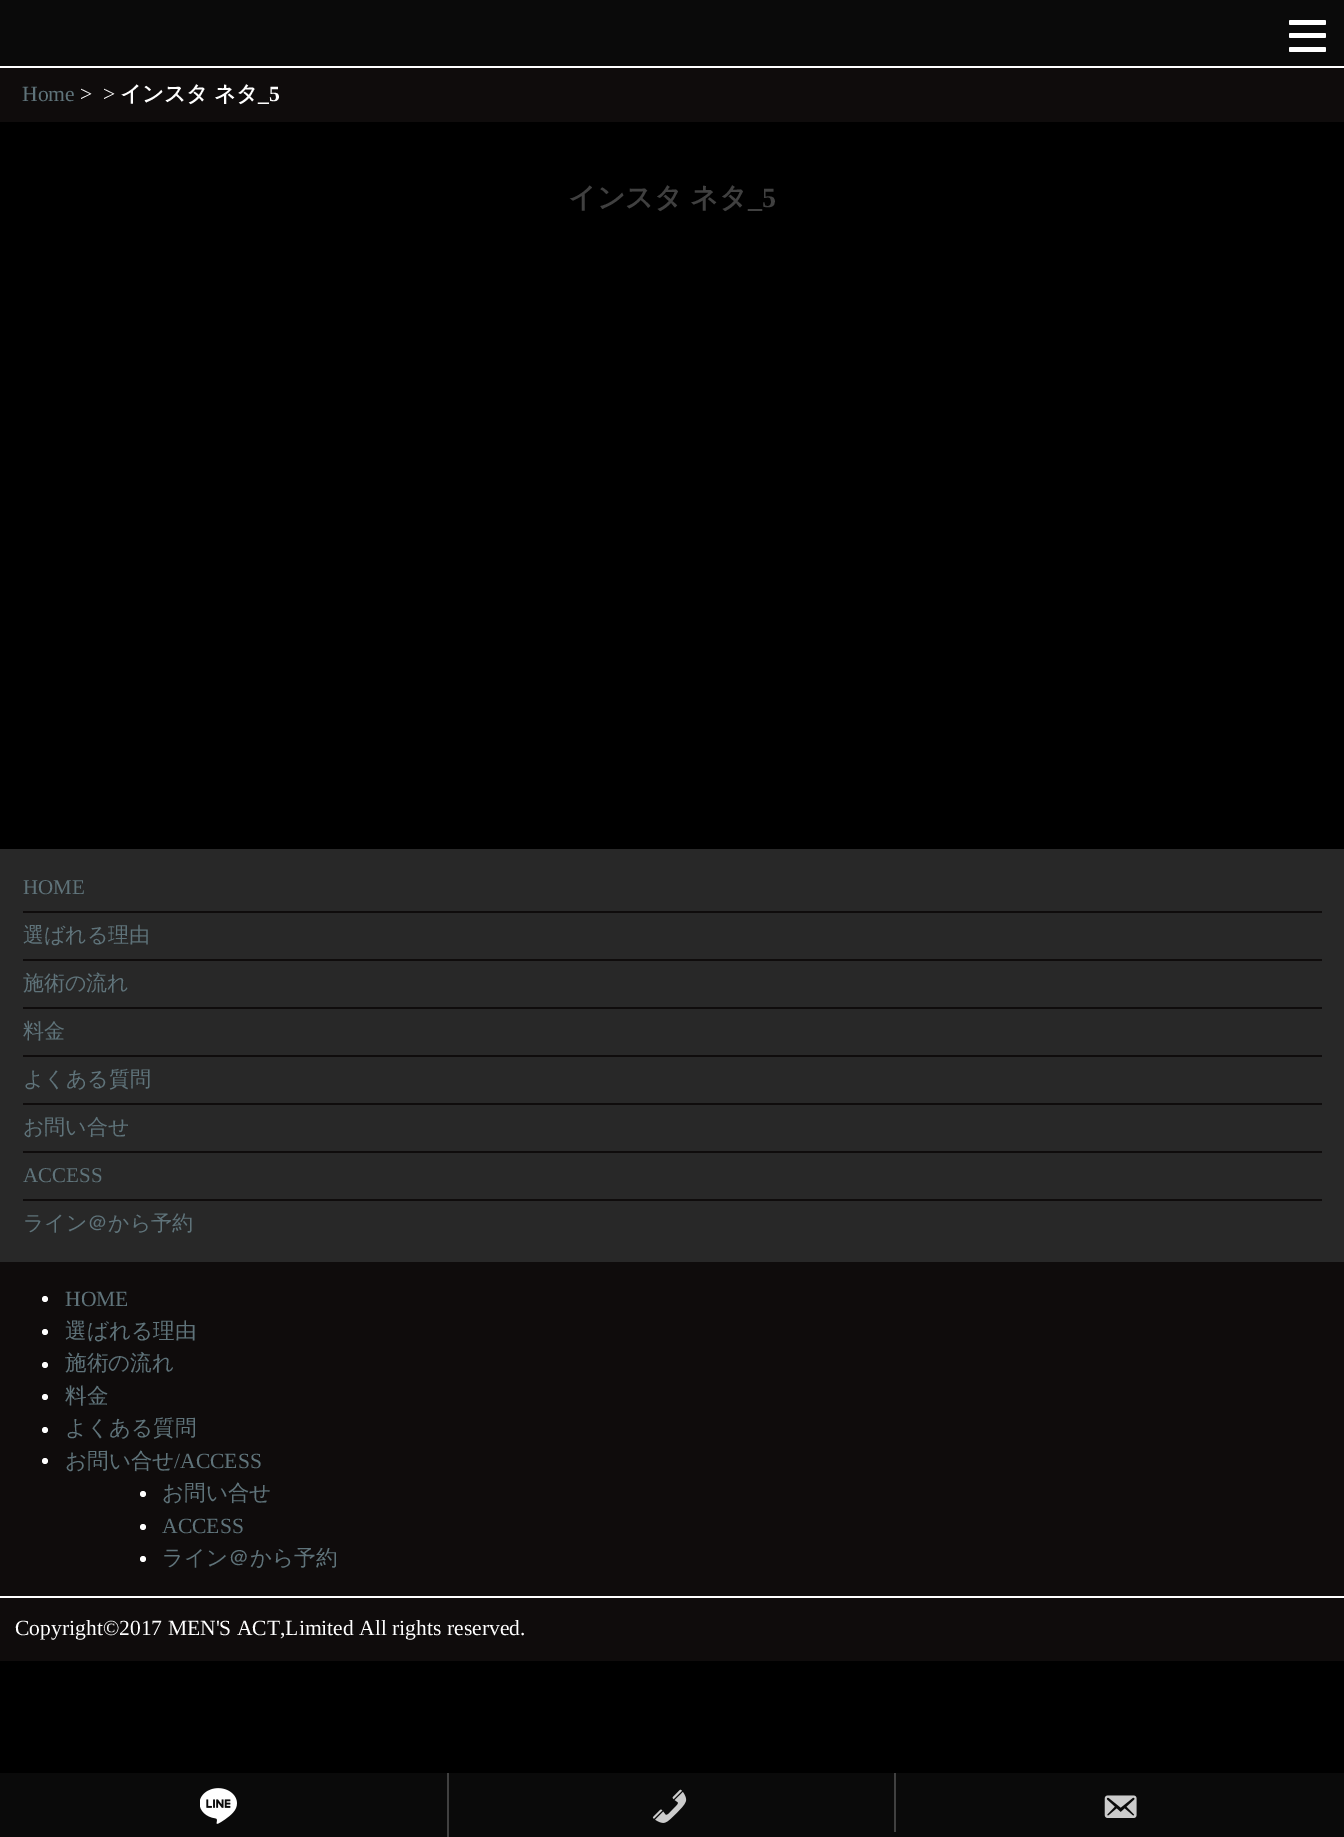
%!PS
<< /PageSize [1344 1837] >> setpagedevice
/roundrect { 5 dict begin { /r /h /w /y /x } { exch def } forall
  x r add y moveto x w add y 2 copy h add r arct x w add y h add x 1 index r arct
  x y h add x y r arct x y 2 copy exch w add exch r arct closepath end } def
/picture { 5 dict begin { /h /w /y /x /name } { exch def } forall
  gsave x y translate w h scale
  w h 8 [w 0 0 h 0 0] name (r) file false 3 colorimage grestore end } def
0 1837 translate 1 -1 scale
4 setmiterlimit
0 setgray
0 0 1344 1837 rectfill
0.039 setgray
0 0 1344 66 rectfill
1 setgray
0 66 1344 2 rectfill
1289 33 37 5 1.5 roundrect fill
1289 20 37 5 1.5 roundrect fill
1289 47 37 5 1.5 roundrect fill
0.039 setgray
0 1773 1344 64 rectfill
0.251 setgray
447 1773 2 64 rectfill
(img1.rgb) 200 1788 37 36 picture
894 1773 2 59 rectfill
(img2.rgb) 652 1789 35 34 picture
(img3.rgb) 1104 1795 33 23 picture
0.059 0.047 0.047 setrgbcolor
0 68 1344 54 rectfill
/LiberationSerif-Regular [21.6 0 0 -21.6 0 0] selectfont
0.373 0.451 0.478 setrgbcolor
22 101 moveto (Home) show
1 setgray
80 101 moveto (>) show
103 101 moveto (>) show
/WenQuanYiZenHei-Bold [21.6 0 0 -21.6 0 0] selectfont
120 101 moveto -1 0 32 (インスタ ネタ) widthshow
/LiberationSerif-Bold [21.6 0 0 -21.6 0 0] selectfont
258 101 moveto (_5) show
/WenQuanYiZenHei-Bold [28 0 0 -28 0 0] selectfont
0.251 setgray
568 207 moveto -1 0 32 (インスタ ネタ) widthshow
/LiberationSerif-Bold [28 0 0 -28 0 0] selectfont
748 207 moveto (_5) show
0.157 setgray
0 849 1344 413 rectfill
0.059 0.047 0.047 setrgbcolor
23 911 1299 2 rectfill
/LiberationSerif-Regular [21 0 0 -21 0 0] selectfont
0.373 0.451 0.478 setrgbcolor
23 894 moveto (HOME) show
0.059 0.047 0.047 setrgbcolor
23 959 1299 2 rectfill
/WenQuanYiZenHei-Medium [21 0 0 -21 0 0] selectfont
0.373 0.451 0.478 setrgbcolor
23 942 moveto (選ばれる理由) show
0.059 0.047 0.047 setrgbcolor
23 1007 1299 2 rectfill
0.373 0.451 0.478 setrgbcolor
23 990 moveto (施術の流れ) show
0.059 0.047 0.047 setrgbcolor
23 1055 1299 2 rectfill
0.373 0.451 0.478 setrgbcolor
23 1038 moveto (料金) show
0.059 0.047 0.047 setrgbcolor
23 1103 1299 2 rectfill
0.373 0.451 0.478 setrgbcolor
23 1086 moveto (よくある質問) show
0.059 0.047 0.047 setrgbcolor
23 1151 1299 2 rectfill
0.373 0.451 0.478 setrgbcolor
23 1134 moveto (お問い合せ) show
0.059 0.047 0.047 setrgbcolor
23 1199 1299 2 rectfill
/LiberationSerif-Regular [21 0 0 -21 0 0] selectfont
0.373 0.451 0.478 setrgbcolor
23 1182 moveto (ACCESS) show
/WenQuanYiZenHei-Medium [21 0 0 -21 0 0] selectfont
23 1230 moveto (ライン＠から予約) show
0.059 0.047 0.047 setrgbcolor
0 1262 1344 399 rectfill
1 setgray
newpath 45 1299 3 0 360 arc closepath fill
/LiberationSerif-Regular [21.6 0 0 -21.6 0 0] selectfont
0.373 0.451 0.478 setrgbcolor
65 1306 moveto (HOME) show
1 setgray
newpath 45 1332 3 0 360 arc closepath fill
/WenQuanYiZenHei-Medium [21.6 0 0 -21.6 0 0] selectfont
0.373 0.451 0.478 setrgbcolor
65 1338 moveto (選ばれる理由) show
1 setgray
newpath 45 1365 3 0 360 arc closepath fill
0.373 0.451 0.478 setrgbcolor
65 1370 moveto (施術の流れ) show
1 setgray
newpath 45 1397 3 0 360 arc closepath fill
0.373 0.451 0.478 setrgbcolor
65 1403 moveto (料金) show
1 setgray
newpath 45 1430 3 0 360 arc closepath fill
0.373 0.451 0.478 setrgbcolor
65 1435 moveto (よくある質問) show
1 setgray
newpath 45 1461 3 0 360 arc closepath fill
0.373 0.451 0.478 setrgbcolor
65 1468 moveto (お問い合せ) show
/LiberationSerif-Regular [21.6 0 0 -21.6 0 0] selectfont
174 1468 moveto (/ACCESS) show
1 setgray
newpath 143 1494 3 0 360 arc closepath fill
/WenQuanYiZenHei-Medium [21.6 0 0 -21.6 0 0] selectfont
0.373 0.451 0.478 setrgbcolor
162 1500 moveto (お問い合せ) show
1 setgray
newpath 143 1527 3 0 360 arc closepath fill
/LiberationSerif-Regular [21.6 0 0 -21.6 0 0] selectfont
0.373 0.451 0.478 setrgbcolor
162 1533 moveto (ACCESS) show
1 setgray
newpath 143 1559 3 0 360 arc closepath fill
/WenQuanYiZenHei-Medium [21.6 0 0 -21.6 0 0] selectfont
0.373 0.451 0.478 setrgbcolor
162 1565 moveto (ライン＠から予約) show
1 setgray
0 1596 1344 2 rectfill
/LiberationSerif-Regular [21.6 0 0 -21.6 0 0] selectfont
15 1635 moveto (Copyright©2017 MEN'S ACT,Limited All rights reserved.) show
showpage
